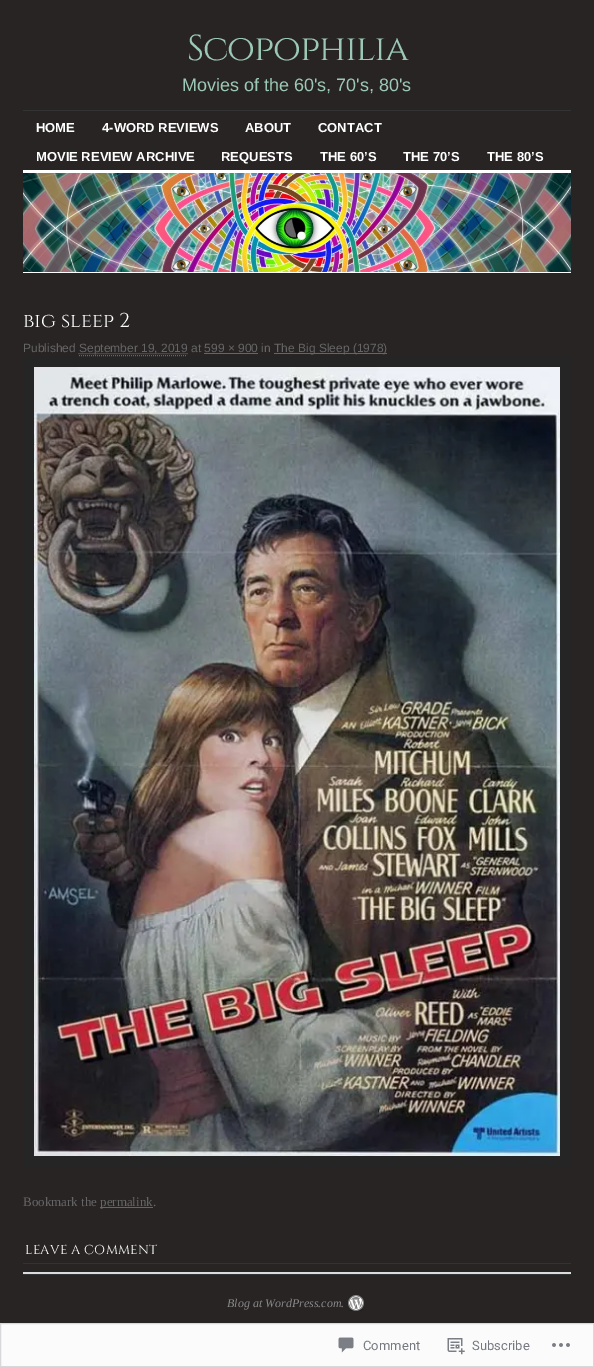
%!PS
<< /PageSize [594 1367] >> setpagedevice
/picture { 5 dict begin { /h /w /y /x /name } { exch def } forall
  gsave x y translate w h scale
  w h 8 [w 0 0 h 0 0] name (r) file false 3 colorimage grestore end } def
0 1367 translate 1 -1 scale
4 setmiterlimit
0.161 0.141 0.141 setrgbcolor
0 0 594 1367 rectfill
/Cinzel-Regular [36 0 0 -36 0 0] selectfont
0.608 0.788 0.71 setrgbcolor
187 60 moveto -1 0 (Scopophilia) ashow
/LiberationSans-Regular [18 0 0 -18 0 0] selectfont
182 91 moveto (Movies of the 60's, 70's, 80's) show
0.2 setgray
23 110 548 1 rectfill
/LiberationSans-Bold [13 0 0 -13 0 0] selectfont
1 setgray
36 132 moveto (HOME) show
102 132 moveto (4-WORD REVIEWS) show
245 132 moveto (ABOUT) show
318 132 moveto (CONTACT) show
36 161 moveto (MOVIE REVIEW ARCHIVE) show
221 161 moveto (REQUESTS) show
320 161 moveto (THE 60’S) show
403 161 moveto (THE 70’S) show
487 161 moveto (THE 80’S) show
23 170 548 3 rectfill
(img1.rgb) 23 173 548 99 picture
23 272 548 1 rectfill
/Cinzel-Regular [20 0 0 -20 0 0] selectfont
23 327 moveto (big sleep 2) show
/LiberationSans-Regular [12 0 0 -12 0 0] selectfont
0.4 setgray
23 352 moveto (Published) show
[1 1] 0 setdash
newpath 78.5 353.5 moveto 187.5 353.5 lineto stroke
79 352 moveto (September 19, 2019 at 599 × 900 in) show
0.145 setgray
23 355 548 813 rectfill
0.4 setgray
newpath 79 355.5 moveto 187 355.5 lineto stroke
274 353 113 1 rectfill
274 352 moveto (The Big Sleep \(1978\)) show
204 353 54 1 rectfill
(img2.rgb) 34 367 526 789 picture
/LiberationSerif-Regular [13 0 0 -13 0 0] selectfont
23 1206 moveto (Bookmark the) show
100 1207 53 1 rectfill
100 1206 moveto (permalink.) show
0.2 setgray
23 1263 548 1 rectfill
/Cinzel-Regular [13 0 0 -13 0 0] selectfont
1 setgray
25 1254 moveto 0.3 0 (LEAVE A COMMENT) ashow
0.863 0.863 0.871 setrgbcolor
23 1272 548 2 rectfill
0.2 setgray
23 1274 548 1 rectfill
(img3.rgb) 348 1295 16 16 picture
/LiberationSerif-Italic [12 0 0 -12 0 0] selectfont
0.533 setgray
227 1307 moveto (Blog at WordPress.com.) show
0.984 setgray
newpath 0.5 1323.5 moveto 593.5 1323.5 lineto 593.5 1366.5 lineto 0.5 1366.5 lineto closepath gsave fill grestore
0.847 0.847 0.855 setrgbcolor
[] 0 setdash
stroke
(img4.rgb) 338 1337 16 16 picture
/Roboto-Regular [13 0 0 -13 0 0] selectfont
0.463 0.478 0.502 setrgbcolor
363 1350 moveto (Comment) show
(img5.rgb) 447 1338 18 17 picture
472 1350 moveto (Subscribe) show
(img6.rgb) 552 1343 18 4 picture
showpage
